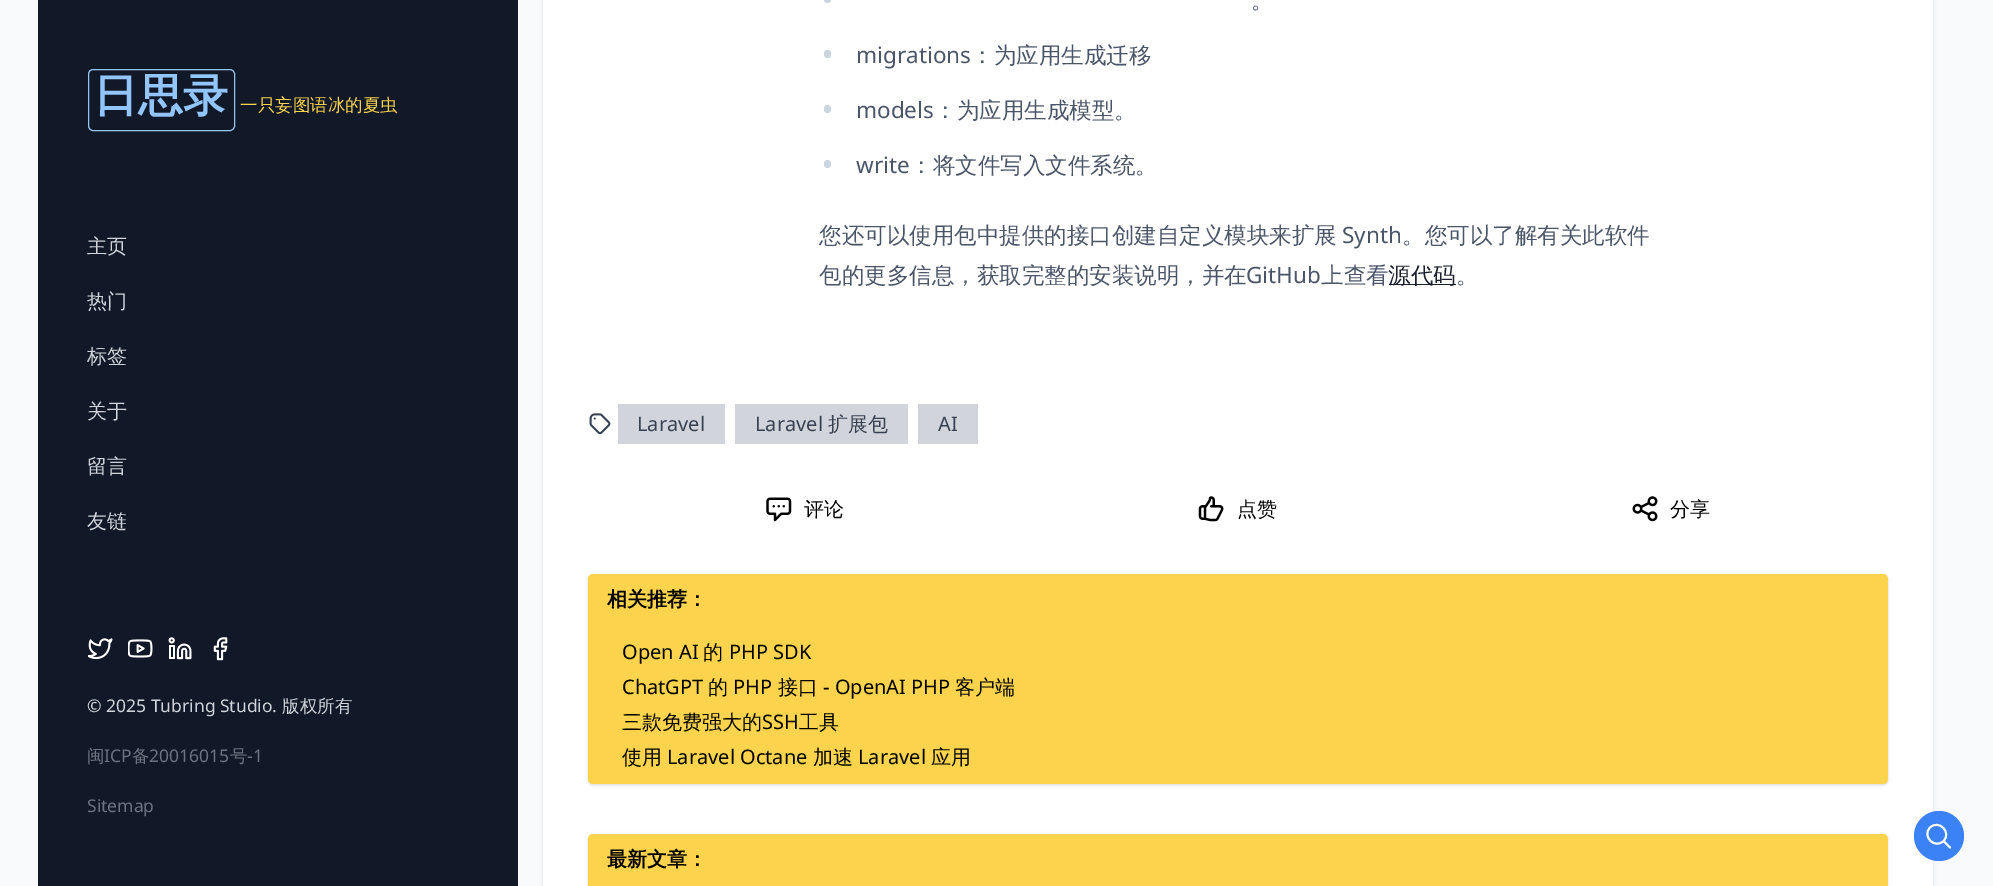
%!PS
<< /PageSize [1993 886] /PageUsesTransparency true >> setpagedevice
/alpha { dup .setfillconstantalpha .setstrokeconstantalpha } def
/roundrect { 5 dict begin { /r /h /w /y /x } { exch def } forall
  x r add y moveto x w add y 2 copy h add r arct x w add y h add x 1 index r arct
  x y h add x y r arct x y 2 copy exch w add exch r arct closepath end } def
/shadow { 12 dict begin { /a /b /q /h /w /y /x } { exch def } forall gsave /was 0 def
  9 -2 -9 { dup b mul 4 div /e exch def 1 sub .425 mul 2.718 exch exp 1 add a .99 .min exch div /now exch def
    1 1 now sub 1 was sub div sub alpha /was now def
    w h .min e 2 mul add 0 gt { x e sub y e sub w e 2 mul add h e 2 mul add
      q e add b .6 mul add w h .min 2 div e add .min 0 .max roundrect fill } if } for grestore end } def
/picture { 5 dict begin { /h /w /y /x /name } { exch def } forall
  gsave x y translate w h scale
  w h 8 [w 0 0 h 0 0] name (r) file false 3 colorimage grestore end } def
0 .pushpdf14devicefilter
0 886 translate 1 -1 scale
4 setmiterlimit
0.976 0.98 0.984 setrgbcolor
0 0 1993 886 rectfill
0.067 0.094 0.153 setrgbcolor
38 0 480 886 rectfill
0.576 0.773 0.992 setrgbcolor
88.5 69.5 146 61 4.5 roundrect stroke
/WenQuanYiZenHei-Bold [45 0 0 -45 0 0] selectfont
93 111 moveto (日思录) show
/WenQuanYiZenHei-Medium [17.5 0 0 -17.5 0 0] selectfont
0.988 0.827 0.302 setrgbcolor
240 111 moveto (一只妄图语冰的夏虫) show
/WenQuanYiZenHei-Medium [20 0 0 -20 0 0] selectfont
0.82 0.835 0.859 setrgbcolor
87 253 moveto (主页) show
87 308 moveto (热门) show
87 363 moveto (标签) show
87 418 moveto (关于) show
87 473 moveto (留言) show
87 528 moveto (友链) show
(img1.rgb) 88 638 25 22 picture
(img2.rgb) 128 639 25 19 picture
(img3.rgb) 168 637 24 23 picture
(img4.rgb) 213 637 15 24 picture
/NotoSans-Regular [17.5 0 0 -17.5 0 0] selectfont
87 712 moveto (© 2025 Tubring Studio.) show
/WenQuanYiZenHei-Medium [17.5 0 0 -17.5 0 0] selectfont
282 712 moveto (版权所有) show
0.42 0.447 0.502 setrgbcolor
87 762 moveto (闽) show
/NotoSans-Regular [17.5 0 0 -17.5 0 0] selectfont
104 762 moveto (ICP) show
/WenQuanYiZenHei-Medium [17.5 0 0 -17.5 0 0] selectfont
132 762 moveto (备) show
/NotoSans-Regular [17.5 0 0 -17.5 0 0] selectfont
149 762 moveto (20016015) show
/WenQuanYiZenHei-Medium [17.5 0 0 -17.5 0 0] selectfont
230 762 moveto (号) show
/NotoSans-Regular [17.5 0 0 -17.5 0 0] selectfont
247 762 moveto (-1) show
87 812 moveto (Sitemap) show
0 setgray
543 -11 1390 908 5 2 0.1 shadow
1 setgray
543 0 1390 886 rectfill
0.796 0.835 0.878 setrgbcolor
newpath 827.5 -0.5 3.5 0 360 arc closepath fill
/WenQuanYiZenHei-Medium [22.5 0 0 -22.5 0 0] selectfont
0.29 0.333 0.408 setrgbcolor
1251 8 moveto (。) show
0.796 0.835 0.878 setrgbcolor
824 50 7 8 3.5 roundrect fill
/NotoSans-Regular [22.5 0 0 -22.5 0 0] selectfont
0.29 0.333 0.408 setrgbcolor
856 63 moveto (migrations) show
/WenQuanYiZenHei-Medium [22.5 0 0 -22.5 0 0] selectfont
971 63 moveto (：为应用生成迁移) show
0.796 0.835 0.878 setrgbcolor
824 105 7 8 3.5 roundrect fill
/NotoSans-Regular [22.5 0 0 -22.5 0 0] selectfont
0.29 0.333 0.408 setrgbcolor
856 118 moveto (models) show
/WenQuanYiZenHei-Medium [22.5 0 0 -22.5 0 0] selectfont
934 118 moveto (：为应用生成模型。) show
0.796 0.835 0.878 setrgbcolor
824 160 7 8 3.5 roundrect fill
/NotoSans-Regular [22.5 0 0 -22.5 0 0] selectfont
0.29 0.333 0.408 setrgbcolor
856 173 moveto (write) show
/WenQuanYiZenHei-Medium [22.5 0 0 -22.5 0 0] selectfont
910 173 moveto (：将文件写入文件系统。) show
819 243 moveto (您还可以使用包中提供的接口创建自定义模块来扩展) show
/NotoSans-Regular [22.5 0 0 -22.5 0 0] selectfont
1342 243 moveto (Synth) show
/WenQuanYiZenHei-Medium [22.5 0 0 -22.5 0 0] selectfont
1402 243 moveto (。您可以了解有关此软件) show
819 283 moveto (包的更多信息，获取完整的安装说明，并在) show
/NotoSans-Regular [22.5 0 0 -22.5 0 0] selectfont
1246 283 moveto (GitHub) show
/WenQuanYiZenHei-Medium [22.5 0 0 -22.5 0 0] selectfont
1321 283 moveto (上查看) show
0.102 0.125 0.173 setrgbcolor
1389 284 67 1 rectfill
1388 283 moveto (源代码) show
0.29 0.333 0.408 setrgbcolor
1456 283 moveto (。) show
(img5.rgb) 589 413 22 22 picture
0.82 0.835 0.859 setrgbcolor
618 404 107 40 rectfill
/NotoSans-Regular [20 0 0 -20 0 0] selectfont
0.216 0.255 0.318 setrgbcolor
637 431 moveto (Laravel) show
0.82 0.835 0.859 setrgbcolor
735 404 173 40 rectfill
0.216 0.255 0.318 setrgbcolor
755 431 moveto (Laravel) show
/WenQuanYiZenHei-Medium [20 0 0 -20 0 0] selectfont
828 431 moveto (扩展包) show
0.82 0.835 0.859 setrgbcolor
918 404 60 40 rectfill
/NotoSans-Regular [20 0 0 -20 0 0] selectfont
0.216 0.255 0.318 setrgbcolor
938 431 moveto (AI) show
(img6.rgb) 766 497 26 25 picture
/WenQuanYiZenHei-Medium [20 0 0 -20 0 0] selectfont
0 setgray
804 516 moveto (评论) show
(img7.rgb) 1198 496 26 26 picture
1237 516 moveto (点赞) show
(img8.rgb) 1632 496 26 26 picture
1670 516 moveto (分享) show
588 575 1300 210 5 1 0.06 shadow
588 575 1300 210 5 2 0.1 shadow
0.988 0.827 0.302 setrgbcolor
588 574 1300 210 5 roundrect fill
/WenQuanYiZenHei-Bold [20 0 0 -20 0 0] selectfont
0 setgray
607 606 moveto (相关推荐：) show
/NotoSans-Regular [20 0 0 -20 0 0] selectfont
622 659 moveto (Open AI) show
/WenQuanYiZenHei-Medium [20 0 0 -20 0 0] selectfont
703 659 moveto (的) show
/NotoSans-Regular [20 0 0 -20 0 0] selectfont
729 659 moveto (PHP SDK) show
622 694 moveto (ChatGPT) show
/WenQuanYiZenHei-Medium [20 0 0 -20 0 0] selectfont
708 694 moveto (的) show
/NotoSans-Regular [20 0 0 -20 0 0] selectfont
733 694 moveto (PHP) show
/WenQuanYiZenHei-Medium [20 0 0 -20 0 0] selectfont
778 694 moveto (接口) show
/NotoSans-Regular [20 0 0 -20 0 0] selectfont
823 694 moveto (- OpenAI PHP) show
/WenQuanYiZenHei-Medium [20 0 0 -20 0 0] selectfont
955 694 moveto (客户端) show
622 729 moveto (三款免费强大的) show
/NotoSans-Regular [20 0 0 -20 0 0] selectfont
762 729 moveto (SSH) show
/WenQuanYiZenHei-Medium [20 0 0 -20 0 0] selectfont
799 729 moveto (工具) show
622 764 moveto (使用) show
/NotoSans-Regular [20 0 0 -20 0 0] selectfont
667 764 moveto (Laravel Octane) show
/WenQuanYiZenHei-Medium [20 0 0 -20 0 0] selectfont
813 764 moveto (加速) show
/NotoSans-Regular [20 0 0 -20 0 0] selectfont
858 764 moveto (Laravel) show
/WenQuanYiZenHei-Medium [20 0 0 -20 0 0] selectfont
931 764 moveto (应用) show
588 835 1300 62 5 2 0.1 shadow
0.988 0.827 0.302 setrgbcolor
588 834 1300 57 5 roundrect fill
/WenQuanYiZenHei-Bold [20 0 0 -20 0 0] selectfont
0 setgray
607 866 moveto (最新文章：) show
0.231 0.51 0.965 setrgbcolor
newpath 1939 836 25 0 360 arc closepath fill
1 setgray
1.9 setlinewidth
1 setlinecap
1 setlinejoin
newpath 1950 847.5 moveto 1943.5 841 lineto 1943.5 841 moveto 1952 832.5 1939 819 1930 827.5 curveto 1921.5 836.5 1935 849.5 1943.5 841 curveto closepath stroke
.poppdf14devicefilter showpage
